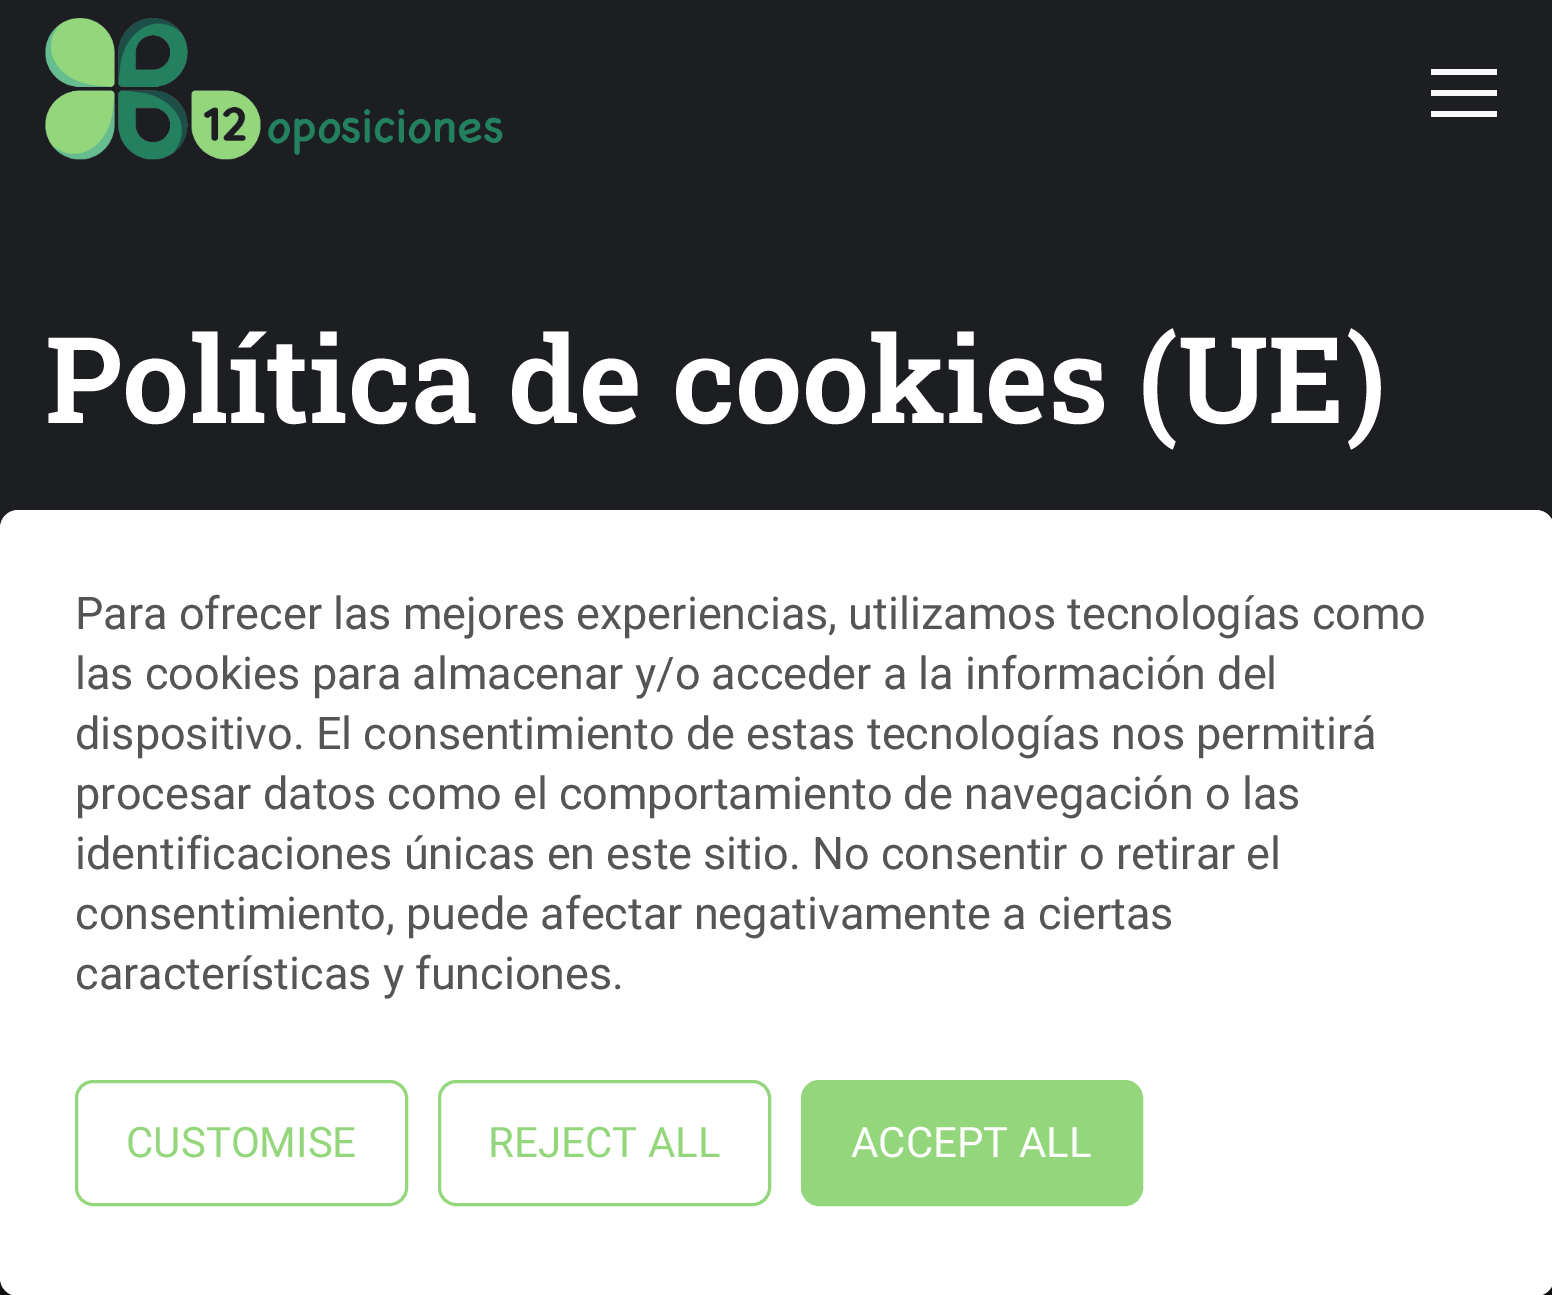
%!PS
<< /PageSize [1552 1295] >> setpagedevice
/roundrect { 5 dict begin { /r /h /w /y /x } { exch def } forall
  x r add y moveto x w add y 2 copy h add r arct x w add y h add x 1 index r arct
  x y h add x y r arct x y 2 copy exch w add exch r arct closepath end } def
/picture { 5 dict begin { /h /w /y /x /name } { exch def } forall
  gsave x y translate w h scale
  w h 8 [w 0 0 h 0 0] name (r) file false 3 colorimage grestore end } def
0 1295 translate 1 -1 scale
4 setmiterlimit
0.067 setgray
0 0 1552 1295 rectfill
0.11 0.118 0.133 setrgbcolor
0 0 1552 528 rectfill
(img1.rgb) 45 18 458 142 picture
0.973 setgray
1431 69 66 6 rectfill
1431 90 66 6 rectfill
1431 111 66 6 rectfill
/RobotoSlab-SemiBold [120 0 0 -120 0 0] selectfont
1 setgray
45 423 moveto (Política de cookies \(UE\)) show
0 510 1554 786 18 roundrect fill
/Roboto-Regular [45 0 0 -45 0 0] selectfont
0.333 setgray
75 629 moveto (Para ofrecer las mejores experiencias, utilizamos tecnologías como) show
75 689 moveto (las cookies para almacenar y/o acceder a la información del) show
75 749 moveto (dispositivo. El consentimiento de estas tecnologías nos permitirá) show
75 809 moveto (procesar datos como el comportamiento de navegación o las) show
75 869 moveto (identificaciones únicas en este sitio. No consentir o retirar el) show
75 929 moveto (consentimiento, puede afectar negativamente a ciertas) show
75 989 moveto (características y funciones.) show
0.58 0.839 0.486 setrgbcolor
3 setlinewidth
76.5 1081.5 330 123 16.5 roundrect stroke
/Roboto-Regular [42 0 0 -42 0 0] selectfont
126 1157 moveto (CUSTOMISE) show
439.5 1081.5 330 123 16.5 roundrect stroke
488 1157 moveto (REJECT ALL) show
802.5 1081.5 339 123 16.5 roundrect gsave fill grestore
stroke
1 setgray
851 1157 moveto (ACCEPT ALL) show
showpage
